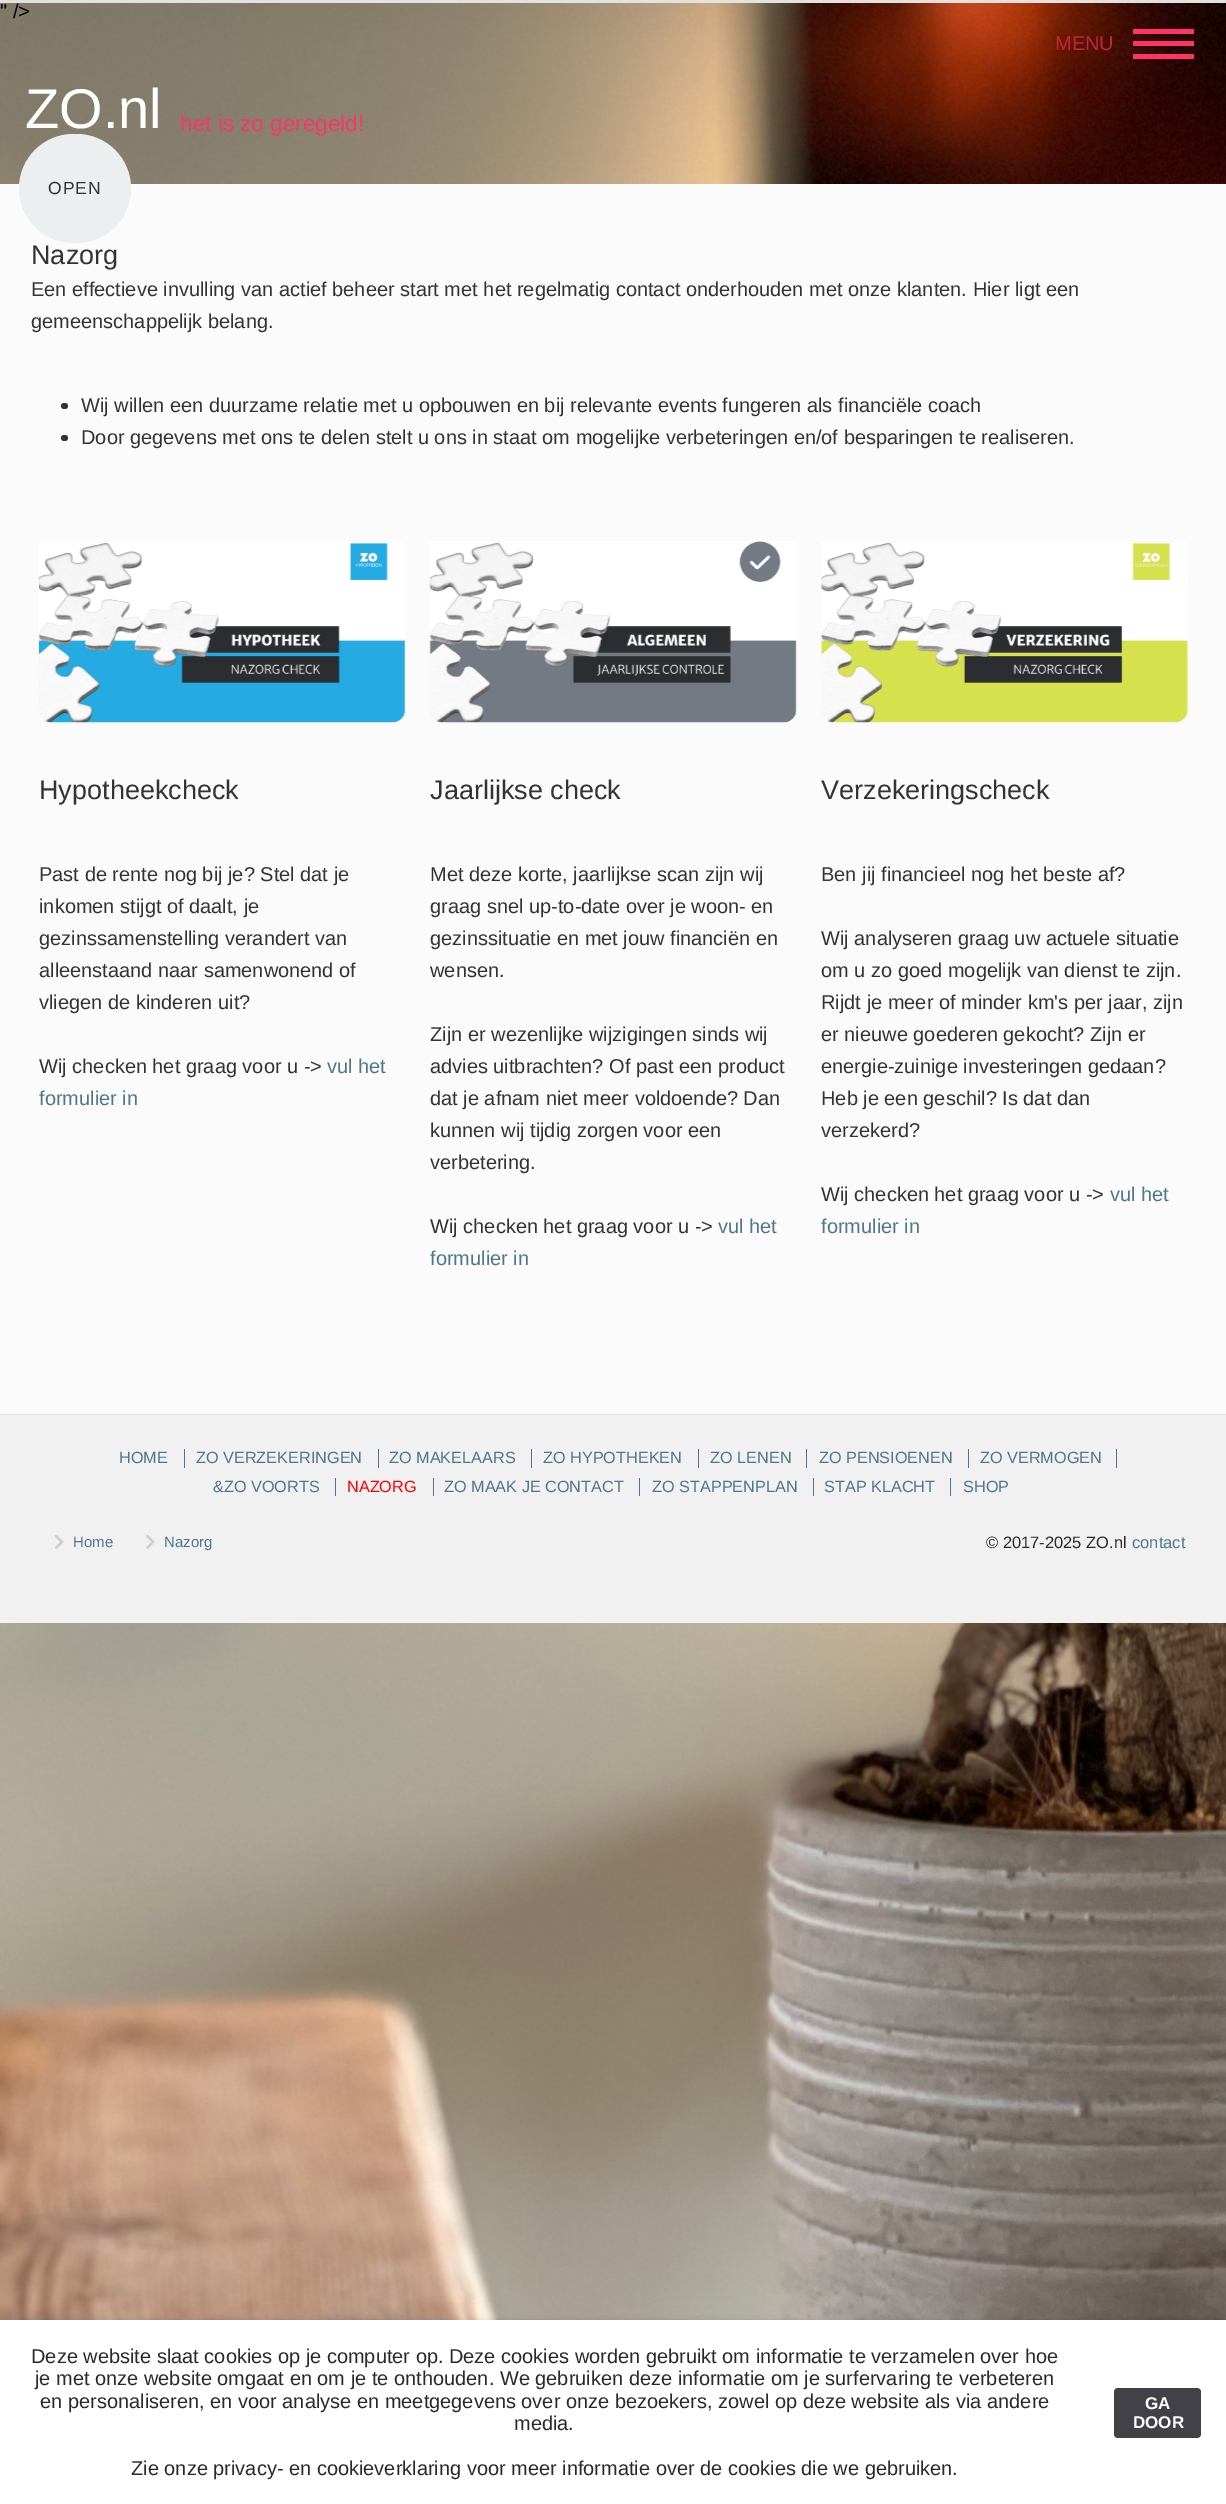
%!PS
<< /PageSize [1226 2504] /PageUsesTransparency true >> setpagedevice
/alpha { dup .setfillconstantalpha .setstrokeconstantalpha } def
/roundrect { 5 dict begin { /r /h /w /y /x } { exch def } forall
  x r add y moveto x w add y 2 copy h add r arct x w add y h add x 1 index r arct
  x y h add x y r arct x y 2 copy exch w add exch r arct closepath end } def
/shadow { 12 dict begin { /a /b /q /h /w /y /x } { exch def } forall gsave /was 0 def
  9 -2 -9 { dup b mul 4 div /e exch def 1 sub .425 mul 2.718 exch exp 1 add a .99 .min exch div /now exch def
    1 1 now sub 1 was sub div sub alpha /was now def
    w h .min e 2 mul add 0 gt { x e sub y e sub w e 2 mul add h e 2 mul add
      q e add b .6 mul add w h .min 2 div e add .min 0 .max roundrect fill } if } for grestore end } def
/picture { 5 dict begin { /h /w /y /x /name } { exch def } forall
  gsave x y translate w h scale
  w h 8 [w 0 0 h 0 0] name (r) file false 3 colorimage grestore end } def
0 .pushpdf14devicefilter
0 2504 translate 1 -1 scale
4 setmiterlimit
1 setgray
0 0 1226 2504 rectfill
0.886 setgray
0 0 1226 3 rectfill
(img1.rgb) 0 3 1226 2317 picture
/LiberationSans-Regular [20 0 0 -20 0 0] selectfont
0 setgray
0 18 moveto (" />) show
0.741 0.153 0.243 setrgbcolor
1055 50 moveto (MENU) show
1 0.2 0.4 setrgbcolor
1133 41 61 5 rectfill
1133 29 61 5 rectfill
1133 54 61 5 rectfill
/LiberationSans-Regular [56 0 0 -56 0 0] selectfont
1 setgray
25 128 moveto (ZO.nl) show
/LiberationSans-Regular [22.5 0 0 -22.5 0 0] selectfont
1 0.2 0.4 setrgbcolor
180 131 moveto (het is zo geregeld!) show
0.984 setgray
0 184 1226 1230 rectfill
0.925 0.937 0.937 setrgbcolor
19 134 112 109 54.5 roundrect fill
/LiberationSans-Regular [17.5 0 0 -17.5 0 0] selectfont
0.2 setgray
48 194 moveto 1 0 (OPEN) ashow
/LiberationSans-Regular [27 0 0 -27 0 0] selectfont
31 264 moveto (Nazorg) show
/LiberationSans-Regular [20 0 0 -20 0 0] selectfont
31 296 moveto (Een effectieve invulling van actief beheer start met het regelmatig contact onderhouden met onze klanten. Hier ligt een) show
31 328 moveto (gemeenschappelijk belang.) show
61 403 7 6 3 roundrect fill
81 412 moveto (Wij willen een duurzame relatie met u opbouwen en bij relevante events fungeren als financiële coach) show
61 435 7 6 3 roundrect fill
81 444 moveto (Door gegevens met ons te delen stelt u ons in staat om mogelijke verbeteringen en/of besparingen te realiseren.) show
(img2.rgb) 39 542 367 181 picture
/LiberationSans-Regular [27 0 0 -27 0 0] selectfont
39 799 moveto (Hypotheekcheck) show
/LiberationSans-Regular [20 0 0 -20 0 0] selectfont
39 881 moveto (Past de rente nog bij je? Stel dat je) show
39 913 moveto (inkomen stijgt of daalt, je) show
39 945 moveto (gezinssamenstelling verandert van) show
39 977 moveto (alleenstaand naar samenwonend of) show
39 1009 moveto (vliegen de kinderen uit?) show
39 1073 moveto (Wij checken het graag voor u ->) show
0.302 0.467 0.541 setrgbcolor
327 1073 moveto (vul het) show
39 1105 moveto (formulier in) show
(img3.rgb) 429 541 368 182 picture
/LiberationSans-Regular [27 0 0 -27 0 0] selectfont
0.2 setgray
430 799 moveto (Jaarlijkse check) show
/LiberationSans-Regular [20 0 0 -20 0 0] selectfont
430 881 moveto (Met deze korte, jaarlijkse scan zijn wij) show
430 913 moveto (graag snel up-to-date over je woon- en) show
430 945 moveto (gezinssituatie en met jouw financiën en) show
430 977 moveto (wensen.) show
430 1041 moveto (Zijn er wezenlijke wijzigingen sinds wij) show
430 1073 moveto (advies uitbrachten? Of past een product) show
430 1105 moveto (dat je afnam niet meer voldoende? Dan) show
430 1137 moveto (kunnen wij tijdig zorgen voor een) show
430 1169 moveto (verbetering.) show
430 1233 moveto (Wij checken het graag voor u ->) show
0.302 0.467 0.541 setrgbcolor
718 1233 moveto (vul het) show
430 1265 moveto (formulier in) show
(img4.rgb) 820 542 368 181 picture
/LiberationSans-Regular [27 0 0 -27 0 0] selectfont
0.2 setgray
821 799 moveto (Verzekeringscheck) show
/LiberationSans-Regular [20 0 0 -20 0 0] selectfont
821 881 moveto (Ben jij financieel nog het beste af?) show
821 945 moveto (Wij analyseren graag uw actuele situatie) show
821 977 moveto (om u zo goed mogelijk van dienst te zijn.) show
821 1009 moveto (Rijdt je meer of minder km's per jaar, zijn) show
821 1041 moveto (er nieuwe goederen gekocht? Zijn er) show
821 1073 moveto (energie-zuinige investeringen gedaan?) show
821 1105 moveto (Heb je een geschil? Is dat dan) show
821 1137 moveto (verzekerd?) show
821 1201 moveto (Wij checken het graag voor u ->) show
0.302 0.467 0.541 setrgbcolor
1110 1201 moveto (vul het) show
821 1233 moveto (formulier in) show
0.945 setgray
0 1415 1226 208 rectfill
0.894 setgray
0 1414 1226 1 rectfill
/LiberationSans-Regular [16.25 0 0 -16.25 0 0] selectfont
0.302 0.467 0.541 setrgbcolor
119 1463 moveto (HOME) show
184 1449 1 19 rectfill
196 1463 moveto (ZO VERZEKERINGEN) show
378 1449 1 19 rectfill
389 1463 moveto (ZO MAKELAARS) show
531 1449 1 19 rectfill
543 1463 moveto (ZO HYPOTHEKEN) show
698 1449 1 19 rectfill
710 1463 moveto (ZO LENEN) show
806 1449 1 19 rectfill
819 1463 moveto (ZO PENSIOENEN) show
968 1449 1 19 rectfill
980 1463 moveto (ZO VERMOGEN) show
1116 1449 1 19 rectfill
213 1492 moveto (&ZO VOORTS) show
335 1478 1 18 rectfill
0.984 0.004 0.024 setrgbcolor
347 1492 moveto (NAZORG) show
0.302 0.467 0.541 setrgbcolor
433 1478 1 18 rectfill
444 1492 moveto (ZO MAAK JE CONTACT) show
639 1478 1 18 rectfill
652 1492 moveto (ZO STAPPENPLAN) show
813 1478 1 18 rectfill
824 1492 moveto (STAP KLACHT) show
950 1478 1 18 rectfill
963 1492 moveto (SHOP) show
(img5.rgb) 55 1535 9 14 picture
/LiberationSans-Regular [15 0 0 -15 0 0] selectfont
73 1547 moveto (Home) show
(img6.rgb) 146 1535 9 14 picture
164 1547 moveto (Nazorg) show
/LiberationSans-Regular [16.5 0 0 -16.5 0 0] selectfont
0.165 setgray
986 1548 moveto (© 2017-2025 ZO.nl) show
0.302 0.467 0.541 setrgbcolor
1132 1548 moveto (contact) show
0 setgray
-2 2320 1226 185 0 2.5 0.1 shadow
1 setgray
0 2320 1226 184 rectfill
/LiberationSans-Regular [20 0 0 -20 0 0] selectfont
0.165 setgray
31 2363 moveto (Deze website slaat cookies op je computer op. Deze cookies worden gebruikt om informatie te verzamelen over hoe) show
35 2385 moveto (je met onze website omgaat en om je te onthouden. We gebruiken deze informatie om je surfervaring te verbeteren) show
40 2408 moveto (en personaliseren, en voor analyse en meetgegevens over onze bezoekers, zowel op deze website als via andere) show
514 2430 moveto (media.) show
131 2475 moveto (Zie onze privacy- en cookieverklaring voor meer informatie over de cookies die we gebruiken.) show
0.259 0.255 0.278 setrgbcolor
1114 2388 87 50 4 roundrect fill
/LiberationSans-Bold [17 0 0 -17 0 0] selectfont
1 setgray
1145 2409 moveto (GA) show
1133 2428 moveto (DOOR) show
.poppdf14devicefilter showpage
